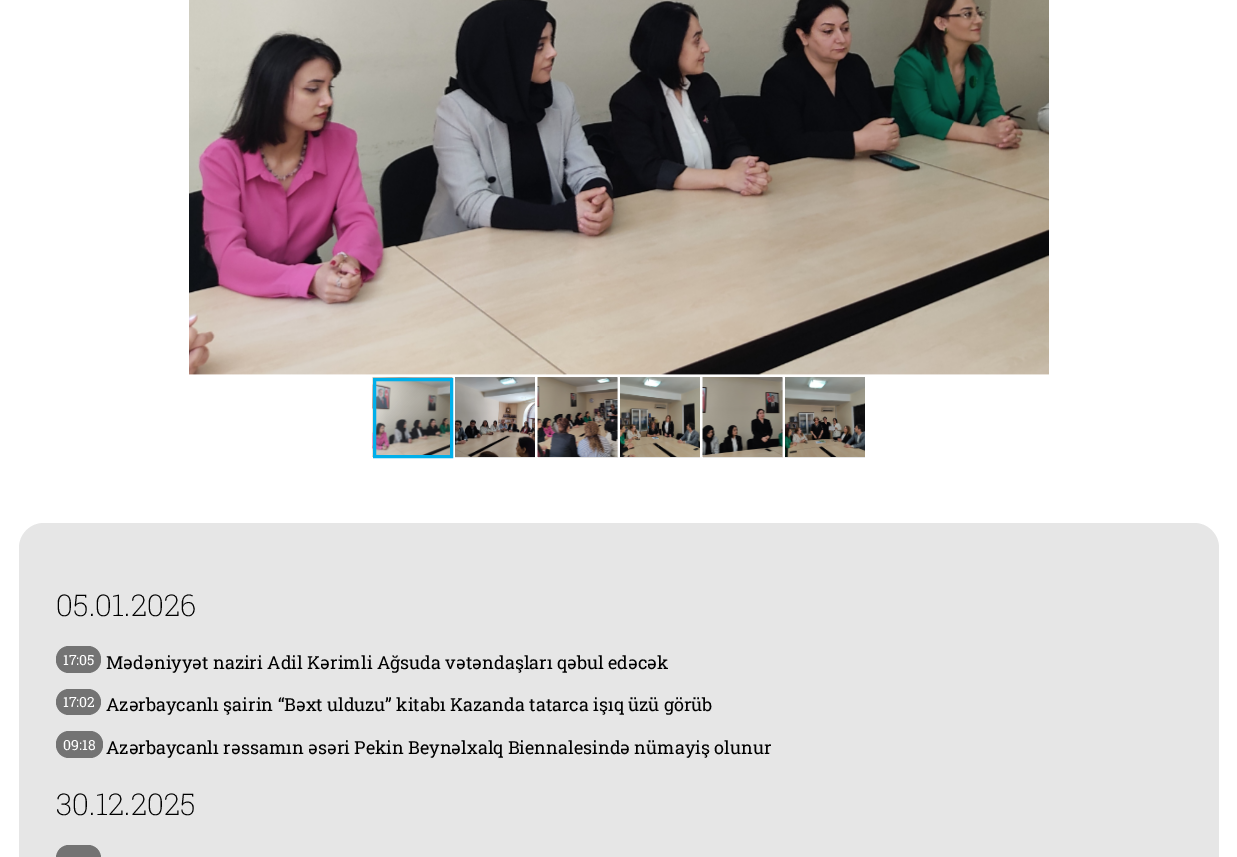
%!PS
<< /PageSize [1237 857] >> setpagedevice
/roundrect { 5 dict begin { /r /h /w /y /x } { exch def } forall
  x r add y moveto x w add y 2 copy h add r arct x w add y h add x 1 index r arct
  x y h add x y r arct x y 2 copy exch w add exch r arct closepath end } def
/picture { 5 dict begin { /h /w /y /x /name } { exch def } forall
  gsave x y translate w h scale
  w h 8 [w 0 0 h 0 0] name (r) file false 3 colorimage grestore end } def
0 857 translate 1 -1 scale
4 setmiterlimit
1 setgray
0 0 1237 857 rectfill
(img1.rgb) 189 0 860 375 picture
(img2.rgb) 372 377 81 80 picture
0.898 setgray
455 457 80 1 rectfill
(img3.rgb) 455 377 80 80 picture
538 378 80 80 rectfill
(img4.rgb) 537 377 81 80 picture
620 457 80 1 rectfill
(img5.rgb) 620 377 80 80 picture
703 378 80 80 rectfill
(img6.rgb) 702 377 81 80 picture
785 457 80 1 rectfill
(img7.rgb) 785 377 80 80 picture
0 0.686 0.918 setrgbcolor
3 setlinewidth
374.5 379.5 77 77 rectstroke
0.902 setgray
19 523 1200 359 25 roundrect fill
/RobotoSlab-ExtraLight [30 0 0 -30 0 0] selectfont
0 setgray
56 616 moveto (05.01.2026) show
0.451 setgray
56 646 45 27 13 roundrect fill
/RobotoSlab-Regular [14 0 0 -14 0 0] selectfont
1 setgray
63 665 moveto (17:05) show
/RobotoSlab-Regular [18 0 0 -18 0 0] selectfont
0 setgray
106 669 moveto (Mədəniyyət naziri Adil Kərimli Ağsuda vətəndaşları qəbul edəcək) show
0.451 setgray
56 689 45 26 13 roundrect fill
/RobotoSlab-Regular [14 0 0 -14 0 0] selectfont
1 setgray
63 707 moveto (17:02) show
/RobotoSlab-Regular [18 0 0 -18 0 0] selectfont
0 setgray
106 711 moveto (Azərbaycanlı şairin “Bəxt ulduzu” kitabı Kazanda tatarca işıq üzü görüb) show
0.451 setgray
56 731 47 27 13 roundrect fill
/RobotoSlab-Regular [14 0 0 -14 0 0] selectfont
1 setgray
63 750 moveto (09:18) show
/RobotoSlab-Regular [18 0 0 -18 0 0] selectfont
0 setgray
106 754 moveto (Azərbaycanlı rəssamın əsəri Pekin Beynəlxalq Biennalesində nümayiş olunur) show
/RobotoSlab-ExtraLight [30 0 0 -30 0 0] selectfont
56 815 moveto (30.12.2025) show
0.451 setgray
56 845 45 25 13 roundrect fill
showpage
